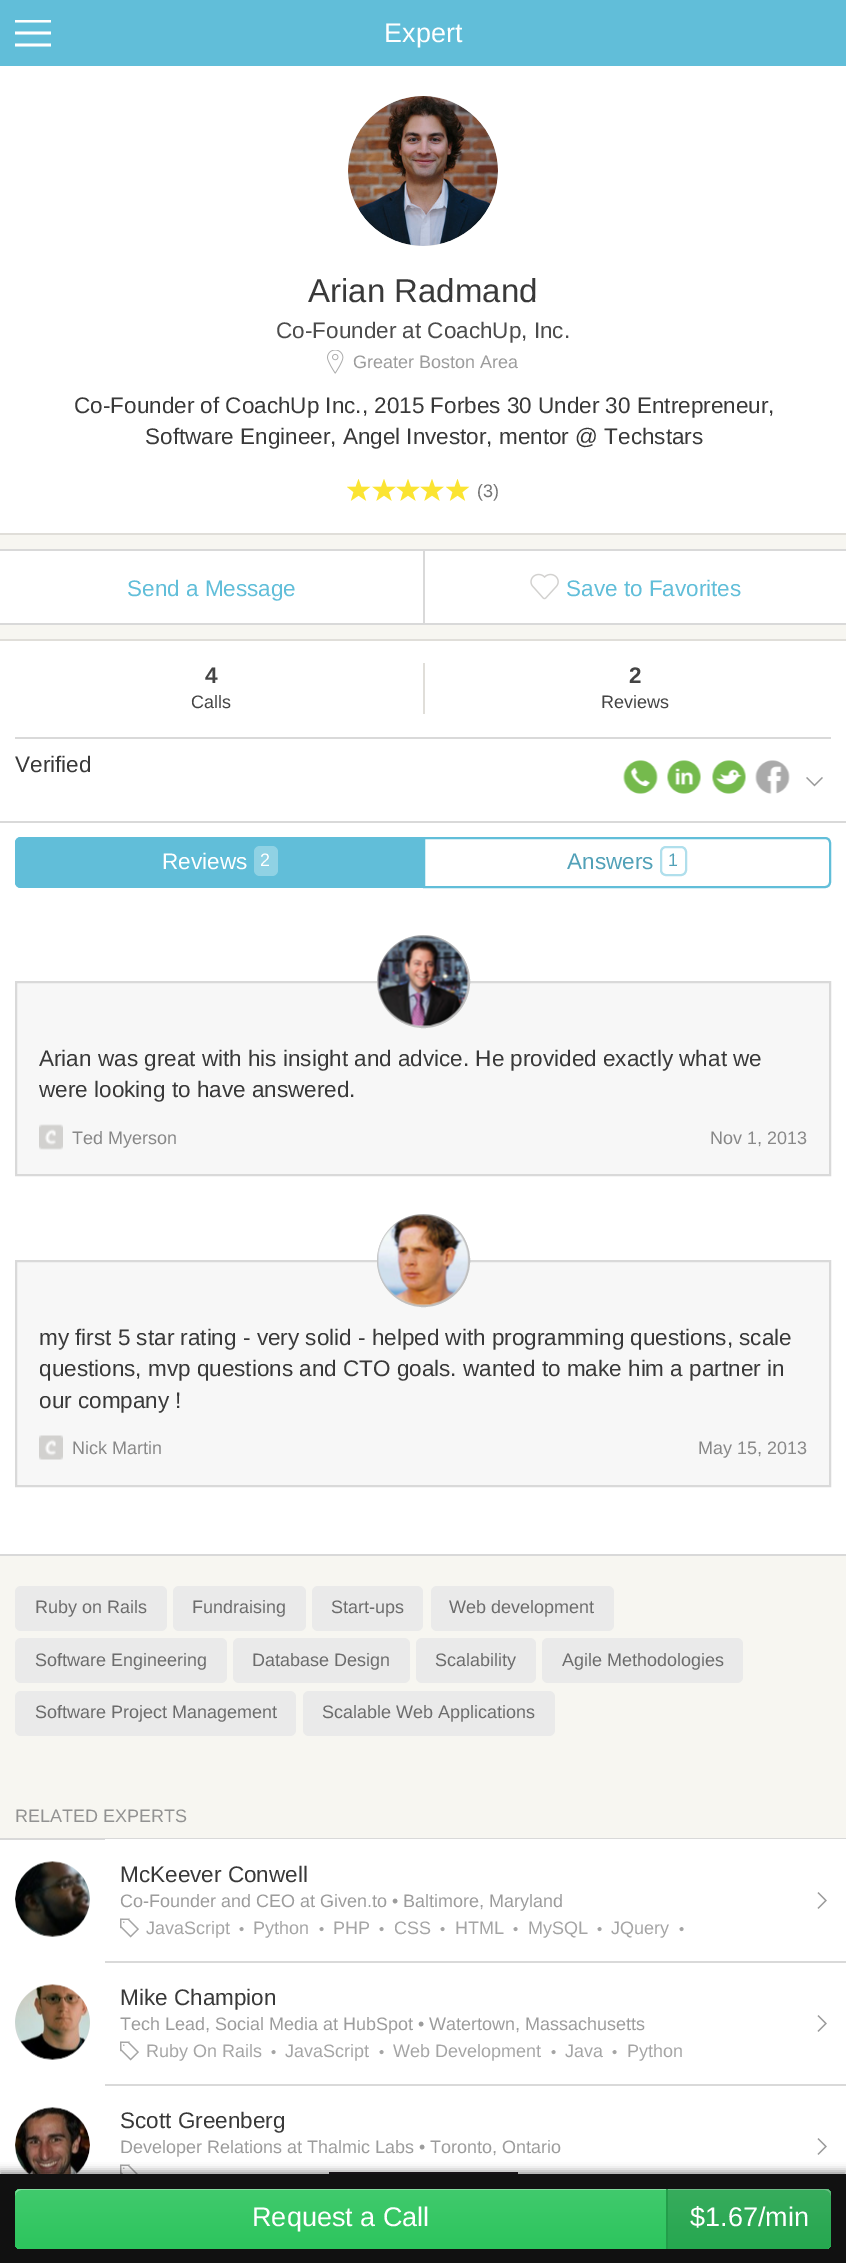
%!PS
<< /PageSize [846 2263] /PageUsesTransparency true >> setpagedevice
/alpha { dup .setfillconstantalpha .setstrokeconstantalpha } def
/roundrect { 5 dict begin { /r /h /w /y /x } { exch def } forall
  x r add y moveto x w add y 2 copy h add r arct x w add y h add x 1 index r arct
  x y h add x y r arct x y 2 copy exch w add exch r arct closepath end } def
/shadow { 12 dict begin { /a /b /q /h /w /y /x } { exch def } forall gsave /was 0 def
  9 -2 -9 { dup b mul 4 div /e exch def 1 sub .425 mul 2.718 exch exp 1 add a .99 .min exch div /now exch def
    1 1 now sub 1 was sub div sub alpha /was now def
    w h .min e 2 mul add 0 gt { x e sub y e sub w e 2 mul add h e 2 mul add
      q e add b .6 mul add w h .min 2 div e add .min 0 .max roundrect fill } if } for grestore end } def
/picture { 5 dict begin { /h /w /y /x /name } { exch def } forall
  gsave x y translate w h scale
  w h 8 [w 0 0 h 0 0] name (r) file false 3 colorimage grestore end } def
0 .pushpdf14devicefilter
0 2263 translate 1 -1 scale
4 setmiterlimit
1 setgray
0 0 846 2263 rectfill
0.38 0.745 0.851 setrgbcolor
0 0 846 66 rectfill
gsave
15 20 36 27 rectclip
1 setgray
newpath 15 19.5 moveto 15 22.5 lineto 51 22.5 lineto 51 19.5 lineto closepath 15 34.5 moveto 15 31.5 lineto 51 31.5 lineto 51 34.5 lineto closepath 15 43.5 moveto 15 46.5 lineto 51 46.5 lineto 51 43.5 lineto closepath eofill
grestore
/LiberationSans-Regular [27 0 0 -27 0 0] selectfont
1 setgray
384 42 moveto (Expert) show
0.851 setgray
newpath 423 171 75 0 360 arc closepath fill
(img1.rgb) 348 96 150 150 picture
/LiberationSans-Regular [33 0 0 -33 0 0] selectfont
0.224 setgray
308 302 moveto (Arian Radmand) show
/LiberationSans-Regular [22.5 0 0 -22.5 0 0] selectfont
0.298 setgray
276 338 moveto (Co-Founder at CoachUp, Inc.) show
(img2.rgb) 327 350 17 24 picture
/LiberationSans-Regular [18 0 0 -18 0 0] selectfont
0.612 setgray
353 368 moveto (Greater Boston Area) show
/LiberationSans-Regular [22.5 0 0 -22.5 0 0] selectfont
0.224 setgray
74 413 moveto (Co-Founder of CoachUp Inc., 2015 Forbes 30 Under 30 Entrepreneur,) show
145 444 moveto (Software Engineer, Angel Investor, mentor @ Techstars) show
(img3.rgb) 347 479 24 22 picture
(img4.rgb) 372 479 24 22 picture
(img4.rgb) 396 479 24 22 picture
(img4.rgb) 420 479 24 22 picture
(img3.rgb) 446 479 24 22 picture
/LiberationSans-Regular [18 0 0 -18 0 0] selectfont
0.455 setgray
477 497 moveto (\(3\)) show
0.969 0.965 0.945 setrgbcolor
0 535 846 104 rectfill
0.878 0.871 0.851 setrgbcolor
0 533 846 2 rectfill
0 639 846 2 rectfill
1 setgray
0 551 423 72 rectfill
0.851 setgray
0 549 846 2 rectfill
0 623 846 2 rectfill
/LiberationSans-Regular [22.5 0 0 -22.5 0 0] selectfont
0.38 0.745 0.851 setrgbcolor
127 596 moveto (Send a Message) show
1 setgray
425 551 421 72 rectfill
0.851 setgray
423 549 2 75 rectfill
(img5.rgb) 530 573 29 27 picture
0.38 0.745 0.851 setrgbcolor
566 596 moveto (Save to Favorites) show
0.878 0.871 0.851 setrgbcolor
423 663 2 51 rectfill
/LiberationSans-Bold [22.5 0 0 -22.5 0 0] selectfont
0.267 setgray
205 683 moveto (4) show
/LiberationSans-Regular [18 0 0 -18 0 0] selectfont
191 708 moveto (Calls) show
/LiberationSans-Bold [22.5 0 0 -22.5 0 0] selectfont
629 683 moveto (2) show
/LiberationSans-Regular [18 0 0 -18 0 0] selectfont
601 708 moveto (Reviews) show
0.851 setgray
15 737 816 2 rectfill
/LiberationSans-Regular [22.5 0 0 -22.5 0 0] selectfont
0.224 setgray
15 772 moveto (Verified) show
(img6.rgb) 623 760 35 34 picture
(img7.rgb) 667 760 34 34 picture
(img8.rgb) 712 760 34 34 picture
(img9.rgb) 755 760 35 34 picture
(img10.rgb) 806 777 17 10 picture
0.851 setgray
0 821 846 2 rectfill
0.38 0.745 0.851 setrgbcolor
newpath 21 837 moveto 423 837 lineto 423 888 lineto 21 888 lineto 17.5 888 15 885.5 15 882 curveto 15 843 lineto 15 839.5 17.5 837 21 837 curveto closepath fill
newpath 21 837 moveto 423 837 lineto 423 888 lineto 21 888 lineto 18 888 15 885 15 882 curveto 15 843 lineto 15 840 18 837 21 837 curveto closepath 21 838 moveto 423 838 lineto 423 888 lineto 21 888 lineto 19 888 16 885 16 882 curveto 16 843 lineto 16 841 19 838 21 838 curveto closepath eofill
1 setgray
162 869 moveto (Reviews) show
0.565 0.824 0.894 setrgbcolor
254 846 24 30 6 roundrect fill
/LiberationSans-Regular [18 0 0 -18 0 0] selectfont
1 setgray
260 866 moveto (2) show
0.38 0.745 0.851 setrgbcolor
2 setlinewidth
newpath 424 838 moveto 825 838 lineto 828 838 830 840 830 843 curveto 830 882 lineto 830 885 828 887 825 887 curveto 424 887 lineto closepath stroke
/LiberationSans-Regular [22.5 0 0 -22.5 0 0] selectfont
0.322 0.631 0.722 setrgbcolor
567 869 moveto (Answers) show
0.69 0.875 0.925 setrgbcolor
661 847 25 28 5 roundrect stroke
/LiberationSans-Regular [18 0 0 -18 0 0] selectfont
0.322 0.631 0.722 setrgbcolor
668 866 moveto (1) show
0.969 0.965 0.945 setrgbcolor
0 1556 846 282 rectfill
0.969 setgray
newpath 16 982 moveto 830 982 lineto 830 1175 lineto 16 1175 lineto closepath gsave fill grestore
0.851 setgray
stroke
newpath 423.5 981.5 45.5 0 360 arc closepath gsave fill grestore
0.753 setgray
stroke
(img11.rgb) 377 935 92 92 picture
/LiberationSans-Regular [22.5 0 0 -22.5 0 0] selectfont
0.224 setgray
39 1066 moveto (Arian was great with his insight and advice. He provided exactly what we) show
39 1097 moveto (were looking to have answered.) show
(img12.rgb) 39 1124 24 26 picture
/LiberationSans-Regular [18 0 0 -18 0 0] selectfont
0.533 setgray
72 1144 moveto (Ted Myerson) show
710 1144 moveto (Nov 1, 2013) show
0.969 setgray
newpath 16 1261 moveto 830 1261 lineto 830 1486 lineto 16 1486 lineto closepath gsave fill grestore
0.851 setgray
stroke
newpath 423.5 1260.5 45.5 0 360 arc closepath gsave fill grestore
0.753 setgray
stroke
(img13.rgb) 377 1214 92 92 picture
/LiberationSans-Regular [22.5 0 0 -22.5 0 0] selectfont
0.224 setgray
39 1345 moveto (my first 5 star rating - very solid - helped with programming questions, scale) show
39 1376 moveto (questions, mvp questions and CTO goals. wanted to make him a partner in) show
39 1408 moveto (our company !) show
(img14.rgb) 39 1435 24 25 picture
/LiberationSans-Regular [18 0 0 -18 0 0] selectfont
0.533 setgray
72 1454 moveto (Nick Martin) show
698 1454 moveto (May 15, 2013) show
0.851 setgray
0 1554 846 2 rectfill
0.918 setgray
15 1586 152 45 6 roundrect fill
0.424 setgray
35 1613 moveto (Ruby on Rails) show
0.918 setgray
173 1586 133 45 6 roundrect fill
0.424 setgray
192 1613 moveto (Fundraising) show
0.918 setgray
312 1586 111 45 6 roundrect fill
0.424 setgray
331 1613 moveto (Start-ups) show
0.918 setgray
431 1586 183 45 6 roundrect fill
0.424 setgray
449 1613 moveto (Web development) show
0.918 setgray
15 1638 212 45 6 roundrect fill
0.424 setgray
35 1666 moveto (Software Engineering) show
0.918 setgray
233 1638 177 45 6 roundrect fill
0.424 setgray
252 1666 moveto (Database Design) show
0.918 setgray
416 1638 120 45 6 roundrect fill
0.424 setgray
435 1666 moveto (Scalability) show
0.918 setgray
542 1638 201 45 6 roundrect fill
0.424 setgray
562 1666 moveto (Agile Methodologies) show
0.918 setgray
15 1691 281 45 6 roundrect fill
0.424 setgray
35 1718 moveto (Software Project Management) show
0.918 setgray
303 1691 252 45 6 roundrect fill
0.424 setgray
322 1718 moveto (Scalable Web Applications) show
0.573 setgray
15 1822 moveto (RELATED EXPERTS) show
0.851 setgray
0 1838 846 2 rectfill
1 setgray
105 1839 741 1 rectfill
0.851 setgray
newpath 52.5 1899.5 37.5 0 360 arc closepath fill
(img15.rgb) 15 1861 75 76 picture
/LiberationSans-Regular [22.5 0 0 -22.5 0 0] selectfont
0.224 setgray
120 1882 moveto (McKeever Conwell) show
/LiberationSans-Regular [18 0 0 -18 0 0] selectfont
0.612 setgray
120 1907 moveto (Co-Founder and CEO at Given.to • Baltimore, Maryland) show
(img16.rgb) 120 1918 19 20 picture
0.647 setgray
146 1934 moveto (JavaScript) show
/LiberationSans-Regular [15 0 0 -15 0 0] selectfont
239 1934 moveto (•) show
/LiberationSans-Regular [18 0 0 -18 0 0] selectfont
253 1934 moveto (Python) show
/LiberationSans-Regular [15 0 0 -15 0 0] selectfont
319 1934 moveto (•) show
/LiberationSans-Regular [18 0 0 -18 0 0] selectfont
333 1934 moveto (PHP) show
/LiberationSans-Regular [15 0 0 -15 0 0] selectfont
379 1934 moveto (•) show
/LiberationSans-Regular [18 0 0 -18 0 0] selectfont
394 1934 moveto (CSS) show
/LiberationSans-Regular [15 0 0 -15 0 0] selectfont
440 1934 moveto (•) show
/LiberationSans-Regular [18 0 0 -18 0 0] selectfont
455 1934 moveto (HTML) show
/LiberationSans-Regular [15 0 0 -15 0 0] selectfont
513 1934 moveto (•) show
/LiberationSans-Regular [18 0 0 -18 0 0] selectfont
528 1934 moveto (MySQL) show
/LiberationSans-Regular [15 0 0 -15 0 0] selectfont
597 1934 moveto (•) show
/LiberationSans-Regular [18 0 0 -18 0 0] selectfont
611 1934 moveto (JQuery) show
/LiberationSans-Regular [15 0 0 -15 0 0] selectfont
679 1934 moveto (•) show
(img17.rgb) 817 1892 10 17 picture
0.851 setgray
105 1961 741 2 rectfill
newpath 52.5 2022.5 37.5 0 360 arc closepath fill
(img18.rgb) 15 1984 75 76 picture
/LiberationSans-Regular [22.5 0 0 -22.5 0 0] selectfont
0.224 setgray
120 2005 moveto (Mike Champion) show
/LiberationSans-Regular [18 0 0 -18 0 0] selectfont
0.612 setgray
120 2030 moveto (Tech Lead, Social Media at HubSpot • Watertown, Massachusetts) show
(img16.rgb) 120 2041 19 20 picture
0.647 setgray
146 2057 moveto (Ruby On Rails) show
/LiberationSans-Regular [15 0 0 -15 0 0] selectfont
271 2057 moveto (•) show
/LiberationSans-Regular [18 0 0 -18 0 0] selectfont
285 2057 moveto (JavaScript) show
/LiberationSans-Regular [15 0 0 -15 0 0] selectfont
379 2057 moveto (•) show
/LiberationSans-Regular [18 0 0 -18 0 0] selectfont
393 2057 moveto (Web Development) show
/LiberationSans-Regular [15 0 0 -15 0 0] selectfont
551 2057 moveto (•) show
/LiberationSans-Regular [18 0 0 -18 0 0] selectfont
565 2057 moveto (Java) show
/LiberationSans-Regular [15 0 0 -15 0 0] selectfont
612 2057 moveto (•) show
/LiberationSans-Regular [18 0 0 -18 0 0] selectfont
627 2057 moveto (Python) show
(img17.rgb) 817 2015 10 17 picture
0.851 setgray
105 2084 741 2 rectfill
newpath 52.5 2145.5 37.5 0 360 arc closepath fill
(img19.rgb) 15 2107 75 67 picture
/LiberationSans-Regular [22.5 0 0 -22.5 0 0] selectfont
0.224 setgray
120 2128 moveto (Scott Greenberg) show
/LiberationSans-Regular [18 0 0 -18 0 0] selectfont
0.612 setgray
120 2153 moveto (Developer Relations at Thalmic Labs • Toronto, Ontario) show
(img20.rgb) 120 2164 18 10 picture
(img17.rgb) 817 2138 10 17 picture
0.114 0.094 0.122 setrgbcolor
329 2172 189 2 rectfill
0 setgray
0 2171 846 90 0 4 0.4 shadow
0.067 setgray
0 2174 846 89 rectfill
gsave 15 2189 816 60 6 roundrect clip newpath
<< /ShadingType 2 /ColorSpace /DeviceRGB /Coords [423 2189 423 2249] /Extend [true true] /Function << /FunctionType 2 /Domain [0 1] /C0 [0.255 0.792 0.427] /C1 [0.173 0.773 0.365] /N 1 >> >> shfill grestore
0.35 alpha
1 setgray
newpath 21 2190 moveto 825 2190 lineto 828 2190 831 2193 831 2196 curveto 831 2192 829 2189 825 2189 curveto 21 2189 lineto 17 2189 15 2192 15 2196 curveto 15 2193 18 2190 21 2190 curveto closepath fill
/LiberationSans-Regular [27 0 0 -27 0 0] selectfont
1 alpha
252 2226 moveto (Request a Call) show
0.15 alpha
0 setgray
newpath 666 2189 moveto 826 2189 lineto 829 2189 831 2191 831 2194 curveto 831 2244 lineto 831 2247 829 2249 826 2249 curveto 666 2249 lineto closepath fill
1 alpha
0.137 0.616 0.29 setrgbcolor
666 2189 2 60 rectfill
1 setgray
690 2226 moveto ($1.67/min) show
.poppdf14devicefilter showpage
